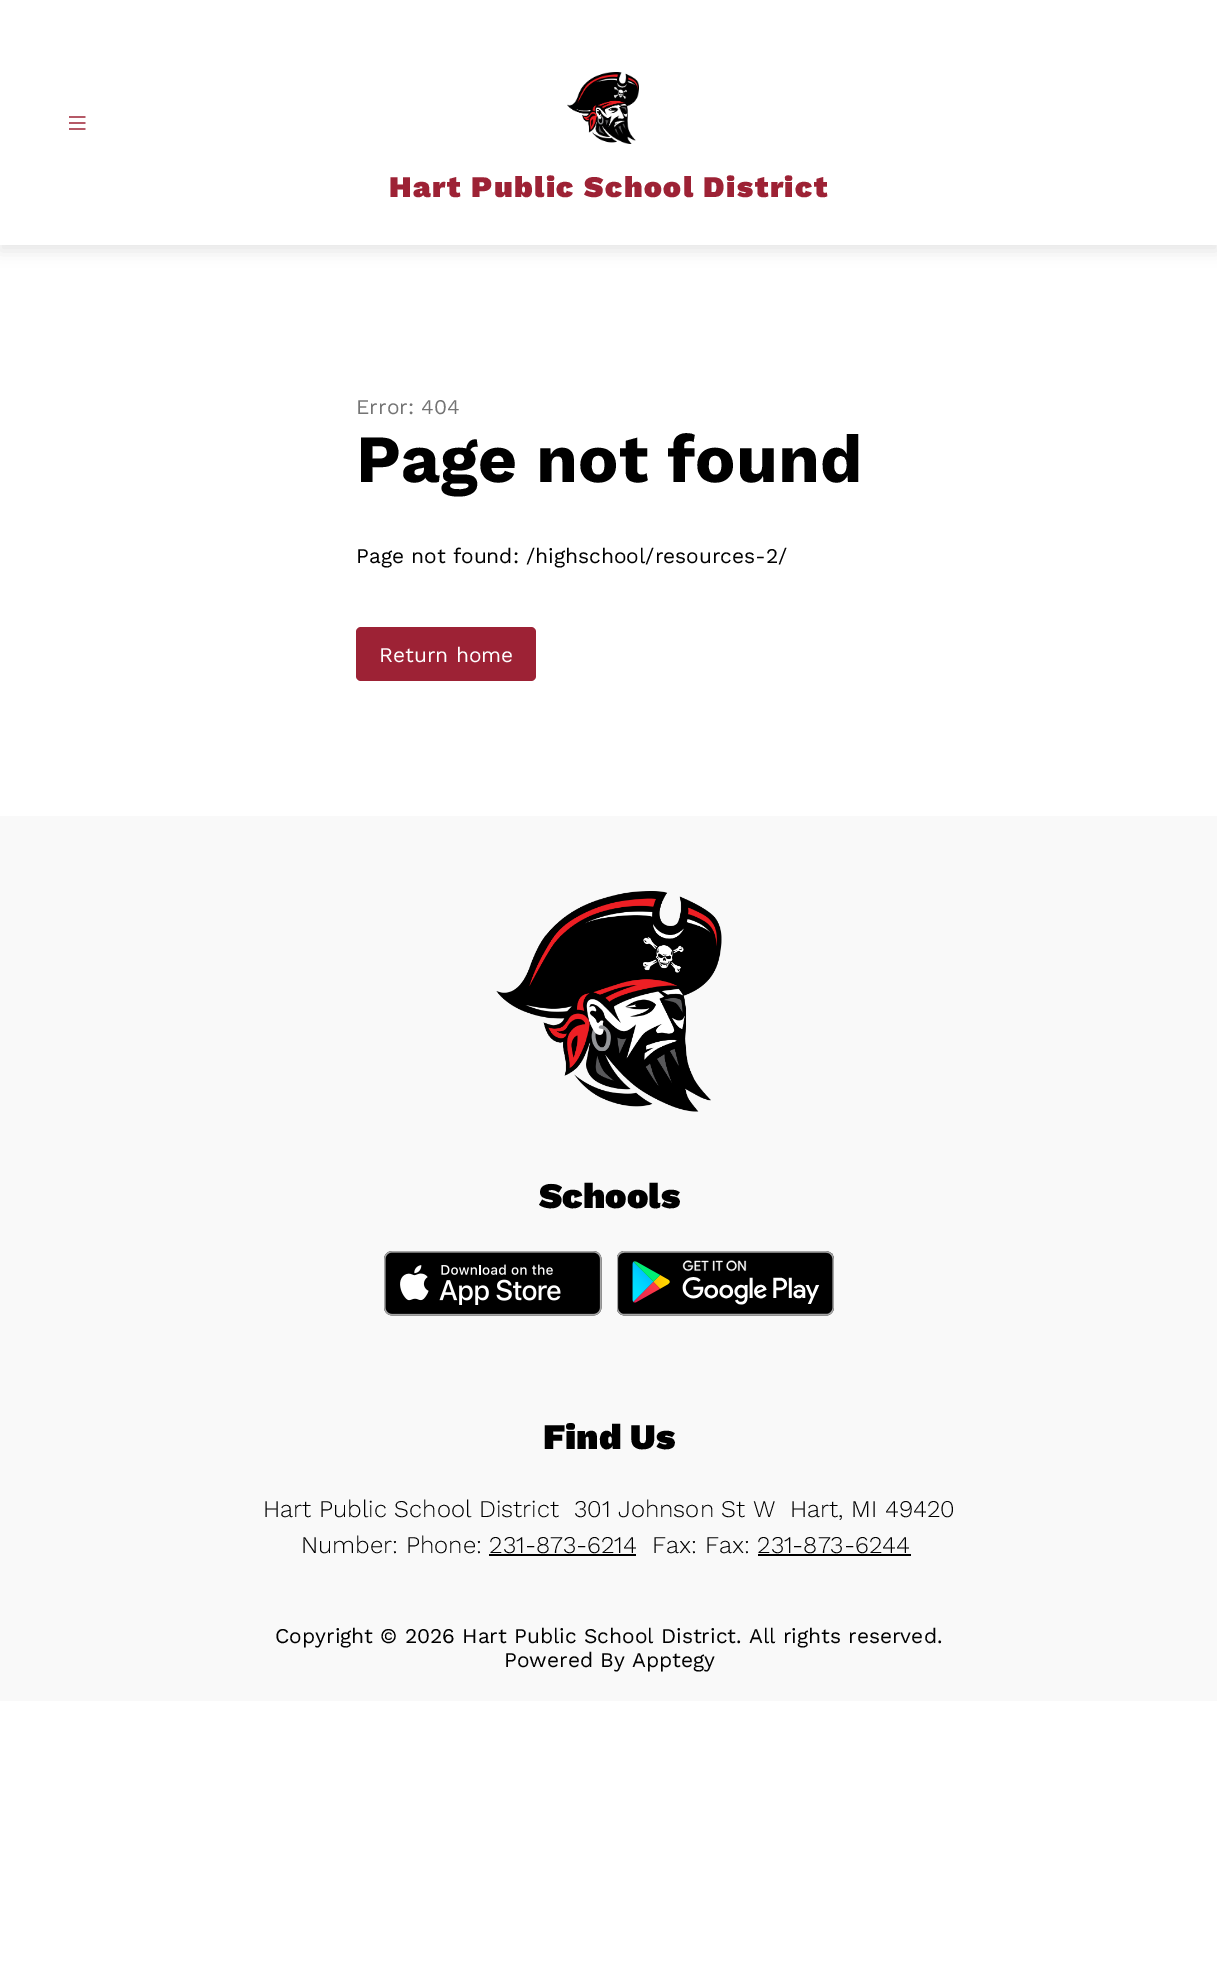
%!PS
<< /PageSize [1217 1986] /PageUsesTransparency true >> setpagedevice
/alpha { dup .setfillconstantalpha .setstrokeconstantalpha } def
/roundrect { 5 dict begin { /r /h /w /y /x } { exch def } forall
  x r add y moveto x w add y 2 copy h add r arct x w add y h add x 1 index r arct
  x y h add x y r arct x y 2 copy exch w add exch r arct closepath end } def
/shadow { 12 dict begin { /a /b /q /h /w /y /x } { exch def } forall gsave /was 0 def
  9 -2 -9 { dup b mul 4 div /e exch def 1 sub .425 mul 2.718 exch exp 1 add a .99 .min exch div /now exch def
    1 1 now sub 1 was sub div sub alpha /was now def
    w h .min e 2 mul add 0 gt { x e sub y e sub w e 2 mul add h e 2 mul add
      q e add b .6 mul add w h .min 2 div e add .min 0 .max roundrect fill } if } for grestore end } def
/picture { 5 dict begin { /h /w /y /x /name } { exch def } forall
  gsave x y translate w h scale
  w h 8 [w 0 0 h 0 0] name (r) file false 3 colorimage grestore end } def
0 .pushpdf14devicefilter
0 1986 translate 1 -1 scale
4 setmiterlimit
1 setgray
0 0 1217 1986 rectfill
0 setgray
0 6 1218 245 0 7.5 0.1 shadow
1 setgray
0 0 1217 245 rectfill
(img1.rgb) 69 116 17 14 picture
(img2.rgb) 567 72 72 72 picture
/WorkSans-Black [30 0 0 -30 0 0] selectfont
0.616 0.133 0.208 setrgbcolor
389 197 moveto 1.5 0 (Hart Public School District) ashow
/WorkSans-Regular [21 0 0 -21 0 0] selectfont
0.455 setgray
356 414 moveto (Error: 404) show
/WorkSans-Bold [67.5 0 0 -67.5 0 0] selectfont
0 setgray
356 482 moveto (Page not found) show
/WorkSans-Regular [21 0 0 -21 0 0] selectfont
356 563 moveto (Page not found: /highschool/resources-2/) show
0.616 0.133 0.208 setrgbcolor
356 627 180 54 5 roundrect fill
1 setgray
379 662 moveto (Return home) show
0.976 setgray
0 816 1217 885 rectfill
(img3.rgb) 496 891 226 221 picture
/WorkSans-Black [36 0 0 -36 0 0] selectfont
0 setgray
539 1208 moveto (Schools) show
(img4.rgb) 384 1251 218 65 picture
(img5.rgb) 617 1251 217 65 picture
543 1449 moveto (Find Us) show
/WorkSans-Light [24 0 0 -24 0 0] selectfont
263 1517 moveto (Hart Public School District) show
574 1517 moveto (301 Johnson St W) show
790 1517 moveto (Hart, MI 49420) show
301 1553 moveto (Number: Phone: 231-873-6214) show
489 1554 147 2 rectfill
652 1553 moveto (Fax: Fax: 231-873-6244) show
758 1554 153 2 rectfill
/WorkSans-Regular [21 0 0 -21 0 0] selectfont
275 1643 moveto (Copyright © 2026 Hart Public School District. All rights reserved.) show
504 1667 moveto (Powered By Apptegy) show
.poppdf14devicefilter showpage
